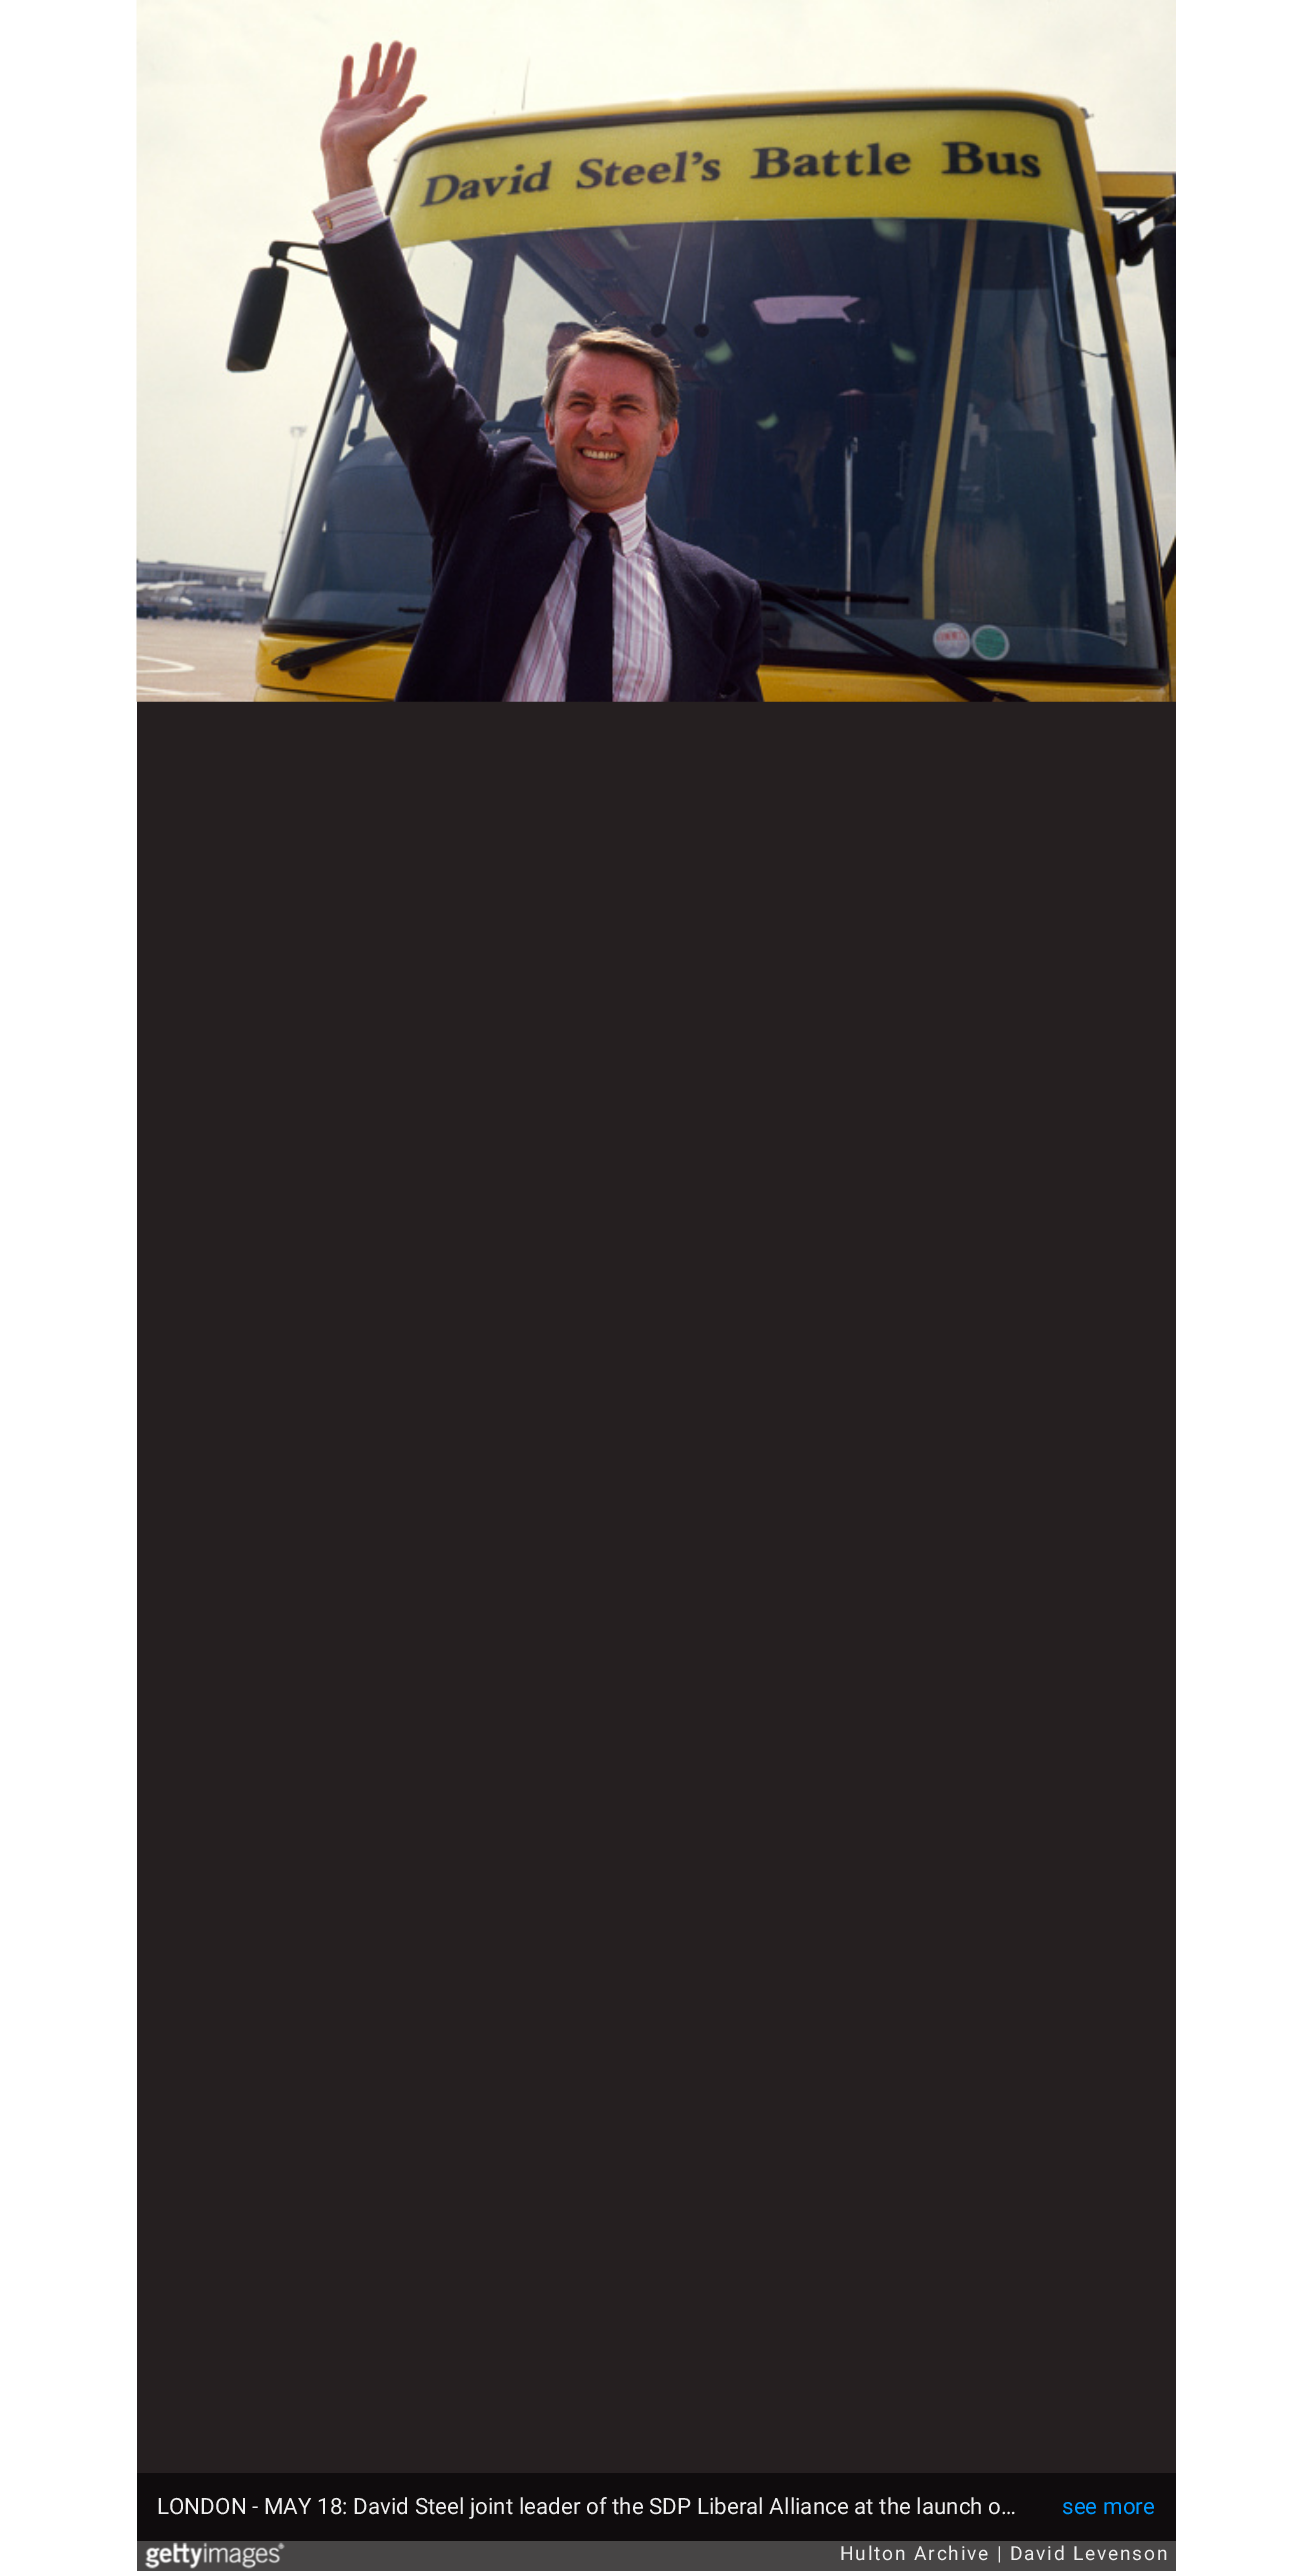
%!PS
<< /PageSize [1311 2571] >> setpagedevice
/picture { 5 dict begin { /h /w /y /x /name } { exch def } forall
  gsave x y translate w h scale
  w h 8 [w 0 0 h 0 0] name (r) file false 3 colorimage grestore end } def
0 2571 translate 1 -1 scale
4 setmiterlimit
1 setgray
0 0 1311 2571 rectfill
0.145 0.122 0.125 setrgbcolor
137 701 1039 1772 rectfill
(img1.rgb) 136 0 1040 702 picture
0.059 0.047 0.051 setrgbcolor
137 2473 1039 68 rectfill
/Roboto-Regular [22.4 0 0 -22.4 0 0] selectfont
0.933 setgray
157 2514 moveto (LONDON - MAY 18: David Steel joint leader of the SDP Liberal Alliance at the launch o…) show
0 0.6 1 setrgbcolor
1062 2514 moveto (see more) show
0.278 0.271 0.271 setrgbcolor
137 2541 1039 30 rectfill
(img2.rgb) 144 2542 141 27 picture
/Roboto-Regular [19.25 0 0 -19.25 0 0] selectfont
0.933 setgray
840 2560 moveto 1.75 0 (Hulton Archive | David Levenson) ashow
showpage
